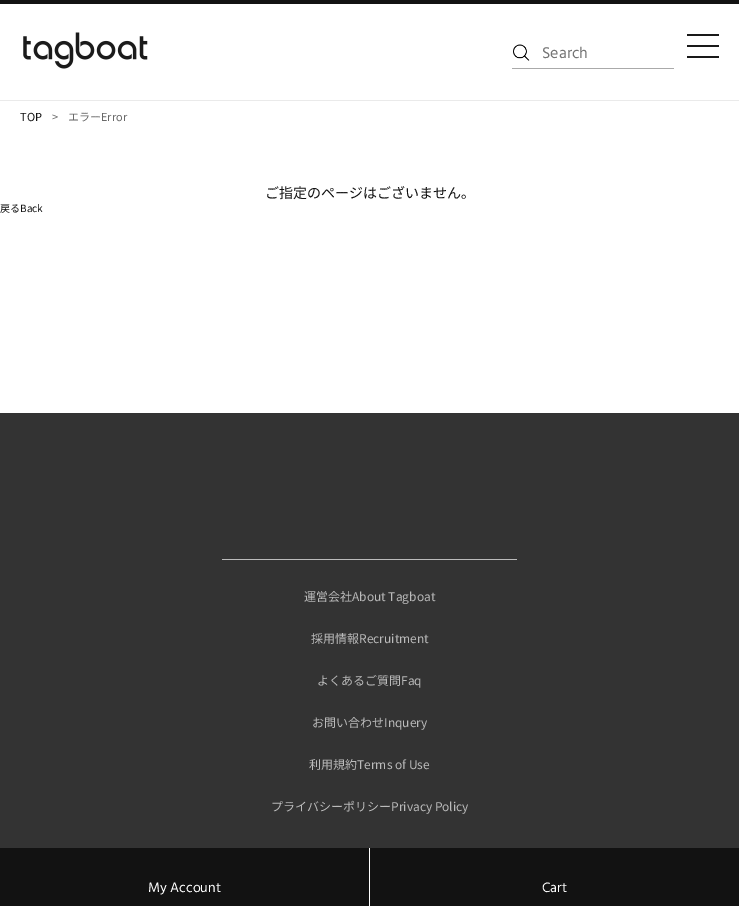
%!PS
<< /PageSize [739 906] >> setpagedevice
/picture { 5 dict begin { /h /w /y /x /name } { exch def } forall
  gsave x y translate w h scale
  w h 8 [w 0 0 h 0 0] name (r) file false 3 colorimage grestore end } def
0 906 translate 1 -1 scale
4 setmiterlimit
1 setgray
0 0 739 906 rectfill
0.071 setgray
0 0 739 4 rectfill
(img1.rgb) 23 32 125 37 picture
0.667 setgray
512 68 162 1 rectfill
(img2.rgb) 513 44 17 17 picture
/Hind-Regular [16 0 0 -16 0 0] selectfont
0.459 setgray
542 58 moveto (Search) show
0.098 setgray
687 34 32 2 rectfill
687 45 32 2 rectfill
687 56 32 2 rectfill
0.918 setgray
0 100 739 1 rectfill
/NotoSansJP-Thin [11 0 0 -11 0 0] selectfont
0.071 setgray
20 121 moveto (TOP) show
0.412 setgray
52 121 moveto (>) show
68 121 moveto (エラーError) show
/NotoSansJP-Thin [14 0 0 -14 0 0] selectfont
0.071 setgray
265 198 moveto (ご指定のページはございません。) show
/NotoSansJP-Thin [10 0 0 -10 0 0] selectfont
0 212 moveto (戻るBack) show
0.2 setgray
0 413 739 435 rectfill
0.733 setgray
222 559 295 1 rectfill
/NotoSansJP-Thin [12 0 0 -12 0 0] selectfont
304 601 moveto (運営会社About Tagboat) show
311 643 moveto (採用情報Recruitment) show
317 685 moveto (よくあるご質問Faq) show
312 727 moveto (お問い合わせInquery) show
309 769 moveto (利用規約Terms of Use) show
271 811 moveto (プライバシーポリシーPrivacy Policy) show
0.071 setgray
0 848 369 58 rectfill
/Hind-Regular [14 0 0 -14 0 0] selectfont
1 setgray
148 892 moveto (My Account) show
0.071 setgray
370 848 369 58 rectfill
1 setgray
542 892 moveto (Cart) show
showpage
